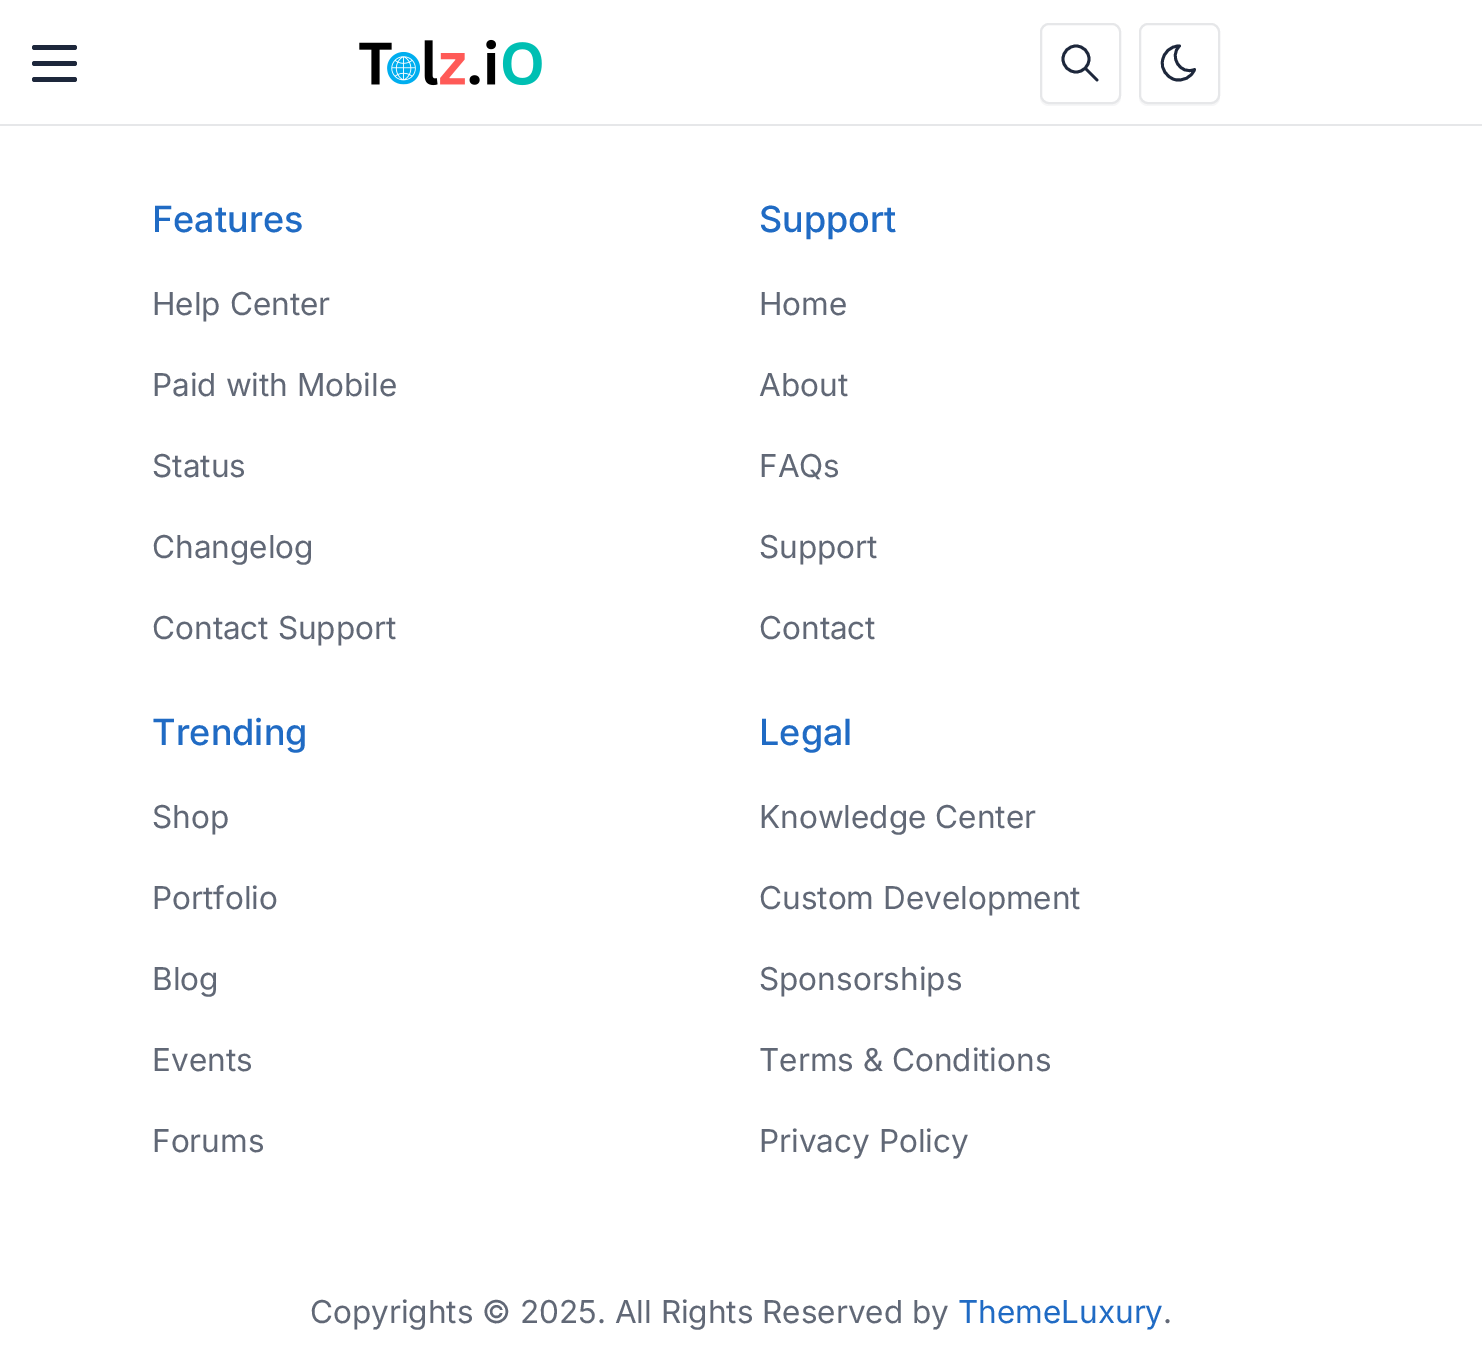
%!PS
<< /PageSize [1482 1369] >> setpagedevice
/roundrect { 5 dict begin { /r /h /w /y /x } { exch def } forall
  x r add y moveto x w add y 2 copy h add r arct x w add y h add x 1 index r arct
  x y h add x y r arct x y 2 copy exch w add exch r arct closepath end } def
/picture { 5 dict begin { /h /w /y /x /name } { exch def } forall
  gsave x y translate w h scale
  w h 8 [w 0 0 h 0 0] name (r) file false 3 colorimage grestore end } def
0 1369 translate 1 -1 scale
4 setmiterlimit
1 setgray
0 0 1482 1369 rectfill
0.902 0.906 0.914 setrgbcolor
0 124 1482 2 rectfill
0.114 0.153 0.231 setrgbcolor
32 61 45 5 2.5 roundrect fill
32 45 45 5 2.5 roundrect fill
32 77 45 5 2.5 roundrect fill
(img1.rgb) 359 39 183 47 picture
0.965 0.965 0.969 setrgbcolor
newpath 1040 98 moveto 1040 102 1044 106 1049 106 curveto 1112 106 lineto 1117 106 1121 102 1121 97 curveto 1121 34 lineto 1120 31 lineto 1120 84 lineto 1120 103 1120 104 1101 104 curveto 1059 104 lineto 1053 104 1043 105 1040 98 curveto closepath fill
1 setgray
1041 24 79 79 8 roundrect gsave fill grestore
0.902 0.906 0.914 setrgbcolor
2 setlinewidth
stroke
0.114 0.153 0.231 setrgbcolor
2.8 setlinewidth
newpath 1076 59 13 0 360 arc closepath stroke
1 setlinecap
1 setlinejoin
newpath 1097 80 moveto 1085.5 68.5 lineto stroke
0.965 0.965 0.969 setrgbcolor
newpath 1139 98 moveto 1139 102 1143 106 1148 106 curveto 1211 106 lineto 1216 106 1220 102 1220 97 curveto 1220 34 lineto 1219 31 lineto 1220 84 lineto 1220 103 1219 104 1200 104 curveto 1158 104 lineto 1152 104 1142 105 1139 98 curveto closepath fill
1 setgray
1140 24 79 79 8 roundrect gsave fill grestore
0.902 0.906 0.914 setrgbcolor
2 setlinewidth
0 setlinecap
0 setlinejoin
stroke
0.114 0.153 0.231 setrgbcolor
2.8 setlinewidth
1 setlinecap
1 setlinejoin
newpath 1179 46 moveto 1179.5 46 lineto 1168.5 56.5 1180.5 75.5 1194.5 69.5 curveto 1191.5 77.5 1183 81.5 1174.5 79.5 curveto 1166.5 77 1161 69 1162.5 61 curveto 1163.5 52.5 1170.5 46 1179 46 curveto closepath stroke
/Inter-Medium [36 0 0 -36 0 0] selectfont
0.125 0.42 0.769 setrgbcolor
152 232 moveto (Features) show
/Inter-Regular [31.5 0 0 -31.5 0 0] selectfont
0.38 0.408 0.463 setrgbcolor
152 315 moveto (Help Center) show
152 396 moveto (Paid with Mobile) show
152 477 moveto (Status) show
152 558 moveto (Changelog) show
152 639 moveto (Contact Support) show
/Inter-Medium [36 0 0 -36 0 0] selectfont
0.125 0.42 0.769 setrgbcolor
759 232 moveto (Support) show
/Inter-Regular [31.5 0 0 -31.5 0 0] selectfont
0.38 0.408 0.463 setrgbcolor
759 315 moveto (Home) show
759 396 moveto (About) show
759 477 moveto (FAQs) show
759 558 moveto (Support) show
759 639 moveto (Contact) show
/Inter-Medium [36 0 0 -36 0 0] selectfont
0.125 0.42 0.769 setrgbcolor
152 745 moveto (Trending) show
/Inter-Regular [31.5 0 0 -31.5 0 0] selectfont
0.38 0.408 0.463 setrgbcolor
152 828 moveto (Shop) show
152 909 moveto (Portfolio) show
152 990 moveto (Blog) show
152 1071 moveto (Events) show
152 1152 moveto (Forums) show
/Inter-Medium [36 0 0 -36 0 0] selectfont
0.125 0.42 0.769 setrgbcolor
759 745 moveto (Legal) show
/Inter-Regular [31.5 0 0 -31.5 0 0] selectfont
0.38 0.408 0.463 setrgbcolor
759 828 moveto (Knowledge Center) show
759 909 moveto (Custom Development) show
759 990 moveto (Sponsorships) show
759 1071 moveto (Terms & Conditions) show
759 1152 moveto (Privacy Policy) show
310 1323 moveto (Copyrights © 2025. All Rights Reserved by) show
0.125 0.42 0.769 setrgbcolor
958 1323 moveto (ThemeLuxury) show
0.38 0.408 0.463 setrgbcolor
1163 1323 moveto (.) show
showpage
